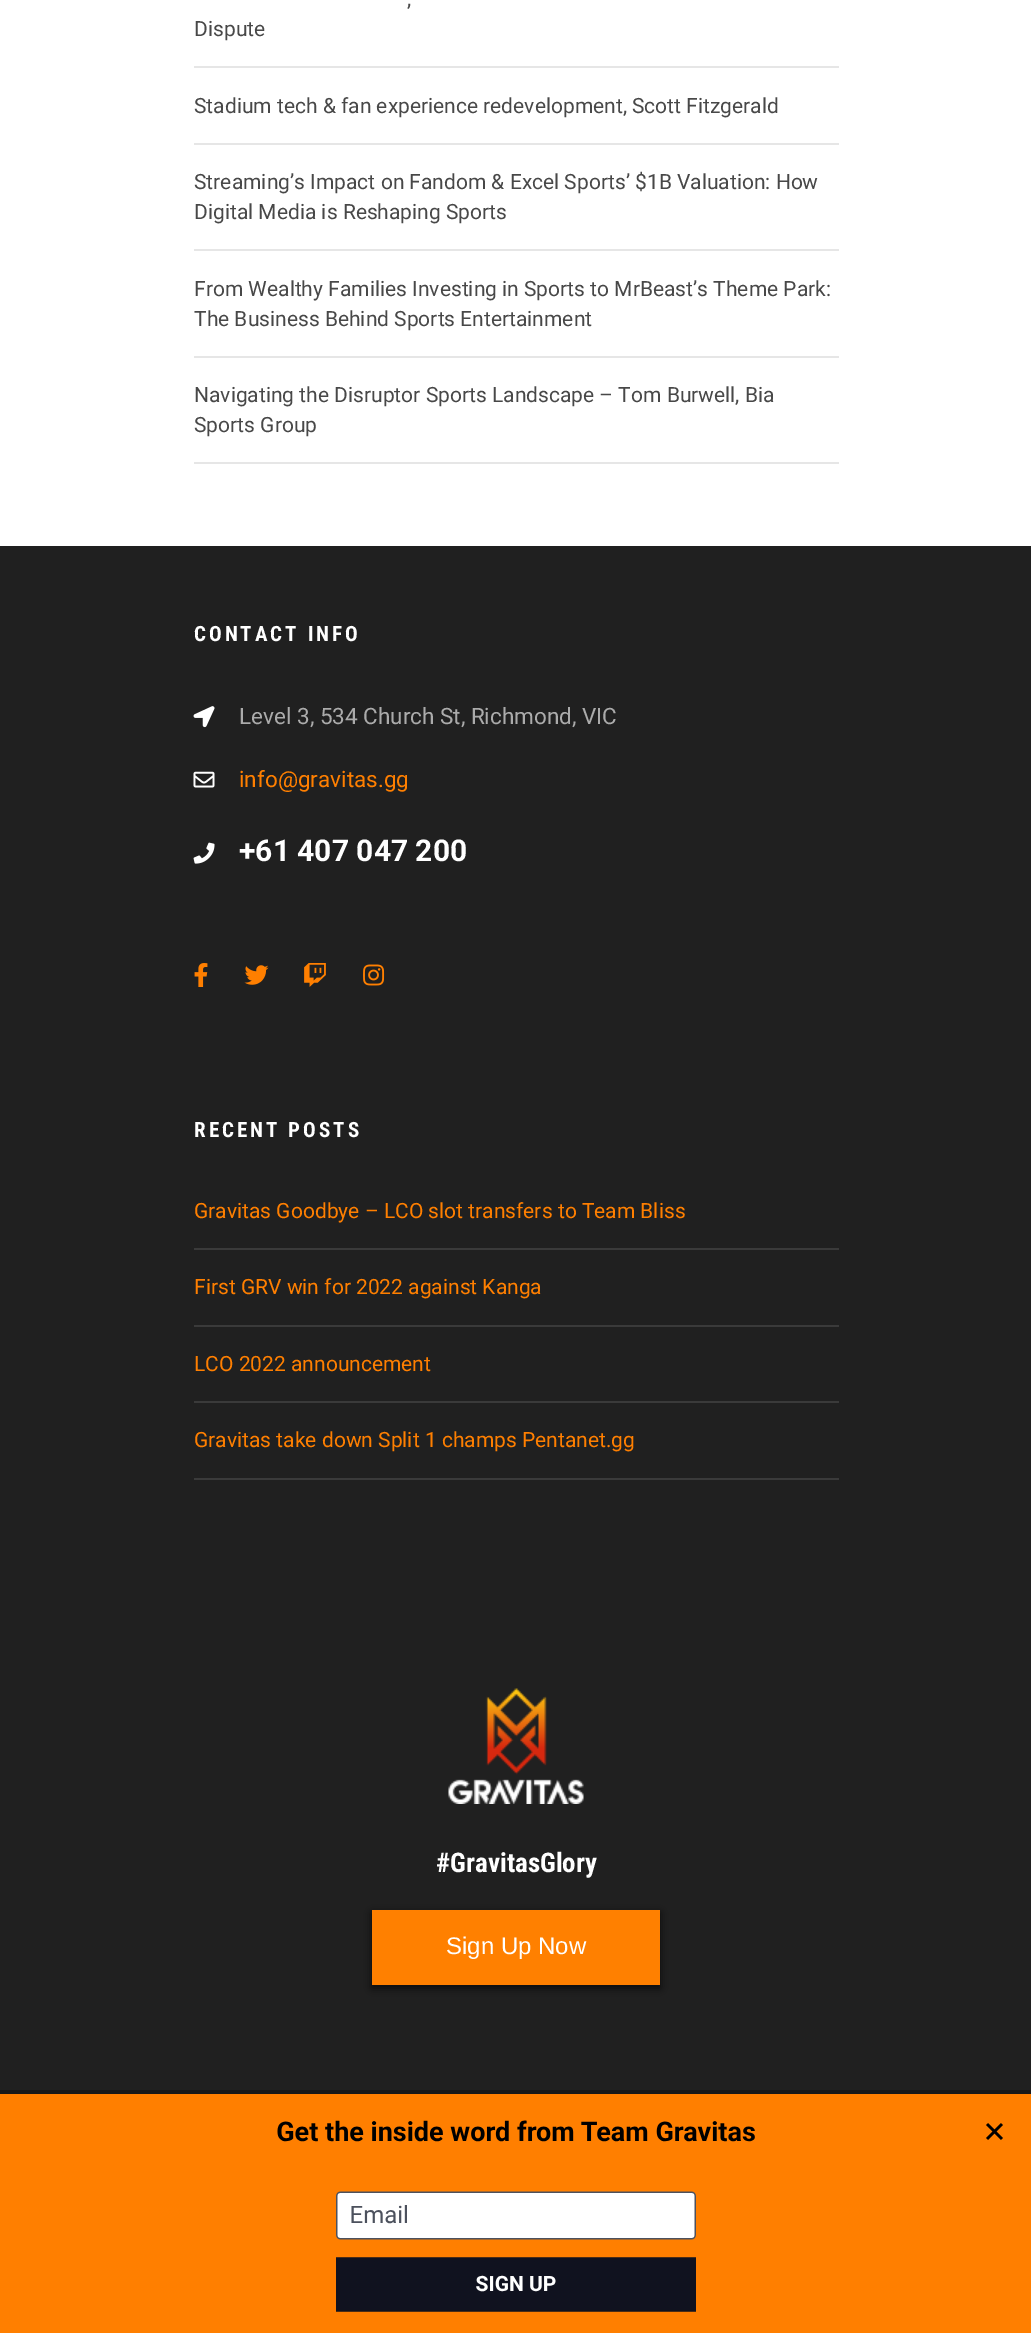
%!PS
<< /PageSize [1031 2333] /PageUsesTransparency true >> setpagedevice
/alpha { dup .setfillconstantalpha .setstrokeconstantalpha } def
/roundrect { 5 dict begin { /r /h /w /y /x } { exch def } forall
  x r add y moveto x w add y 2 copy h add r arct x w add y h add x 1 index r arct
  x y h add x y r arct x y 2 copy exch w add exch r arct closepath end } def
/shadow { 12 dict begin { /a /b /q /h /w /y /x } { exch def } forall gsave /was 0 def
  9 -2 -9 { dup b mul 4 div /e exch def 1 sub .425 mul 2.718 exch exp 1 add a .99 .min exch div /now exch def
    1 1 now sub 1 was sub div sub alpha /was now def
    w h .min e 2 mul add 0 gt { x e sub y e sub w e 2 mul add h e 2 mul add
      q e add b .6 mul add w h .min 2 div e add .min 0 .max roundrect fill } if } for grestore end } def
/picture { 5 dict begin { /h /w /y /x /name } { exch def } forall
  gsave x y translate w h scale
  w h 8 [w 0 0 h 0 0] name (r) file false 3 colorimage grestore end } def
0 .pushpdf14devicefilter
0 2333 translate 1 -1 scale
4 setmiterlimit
1 setgray
0 0 1031 2333 rectfill
0.902 setgray
194 66 645 2 rectfill
/Roboto-Regular [21 0 0 -21 0 0] selectfont
0.282 setgray
407 6 moveto (,) show
194 36 moveto (Dispute) show
0.902 setgray
194 143 645 2 rectfill
0.282 setgray
194 113 moveto (Stadium tech & fan experience redevelopment, Scott Fitzgerald) show
0.902 setgray
194 249 645 2 rectfill
0.282 setgray
194 189 moveto (Streaming’s Impact on Fandom & Excel Sports’ $1B Valuation: How) show
194 219 moveto (Digital Media is Reshaping Sports) show
0.902 setgray
194 356 645 2 rectfill
0.282 setgray
194 296 moveto (From Wealthy Families Investing in Sports to MrBeast’s Theme Park:) show
194 326 moveto (The Business Behind Sports Entertainment) show
0.902 setgray
194 462 645 2 rectfill
0.282 setgray
194 402 moveto (Navigating the Disruptor Sports Landscape – Tom Burwell, Bia) show
194 432 moveto (Sports Group) show
0.125 setgray
0 546 1031 1544 rectfill
/RobotoCondensed-Bold [21 0 0 -21 0 0] selectfont
1 setgray
194 641 moveto 3 0 (CONTACT INFO) ashow
(img1.rgb) 193 706 22 22 picture
/Roboto-Regular [22.5 0 0 -22.5 0 0] selectfont
0.671 setgray
239 724 moveto (Level 3, 534 Church St, Richmond, VIC) show
(img2.rgb) 193 771 22 17 picture
1 0.498 0 setrgbcolor
239 787 moveto (info@gravitas.gg) show
(img3.rgb) 193 842 22 22 picture
/Roboto-Bold [30 0 0 -30 0 0] selectfont
1 setgray
239 861 moveto (+61 407 047 200) show
(img4.rgb) 194 963 14 24 picture
(img5.rgb) 244 965 25 20 picture
(img6.rgb) 304 963 22 24 picture
(img7.rgb) 363 964 22 22 picture
/RobotoCondensed-Bold [21 0 0 -21 0 0] selectfont
194 1137 moveto 3 0 (RECENT POSTS) ashow
0.227 setgray
194 1248 645 2 rectfill
/Roboto-Regular [21 0 0 -21 0 0] selectfont
1 0.498 0 setrgbcolor
194 1218 moveto (Gravitas Goodbye – LCO slot transfers to Team Bliss) show
0.227 setgray
194 1325 645 2 rectfill
1 0.498 0 setrgbcolor
194 1294 moveto (First GRV win for 2022 against Kanga) show
0.227 setgray
194 1401 645 2 rectfill
1 0.498 0 setrgbcolor
194 1371 moveto (LCO 2022 announcement) show
0.227 setgray
194 1478 645 2 rectfill
1 0.498 0 setrgbcolor
194 1447 moveto (Gravitas take down Split 1 champs Pentanet.gg) show
(img8.rgb) 448 1688 136 116 picture
/RobotoCondensed-Bold [27 0 0 -27 0 0] selectfont
1 setgray
436 1872 moveto (#GravitasGlory) show
0 setgray
372 1913 288 75 0 4 0.6 shadow
1 0.502 0 setrgbcolor
372 1910 288 75 rectfill
/LiberationSans-Regular [24 0 0 -24 0 0] selectfont
1 setgray
446 1954 moveto (Sign Up Now) show
0.094 setgray
0 2090 1031 4 rectfill
(img9.rgb) 0 2094 1031 239 picture
.poppdf14devicefilter showpage
